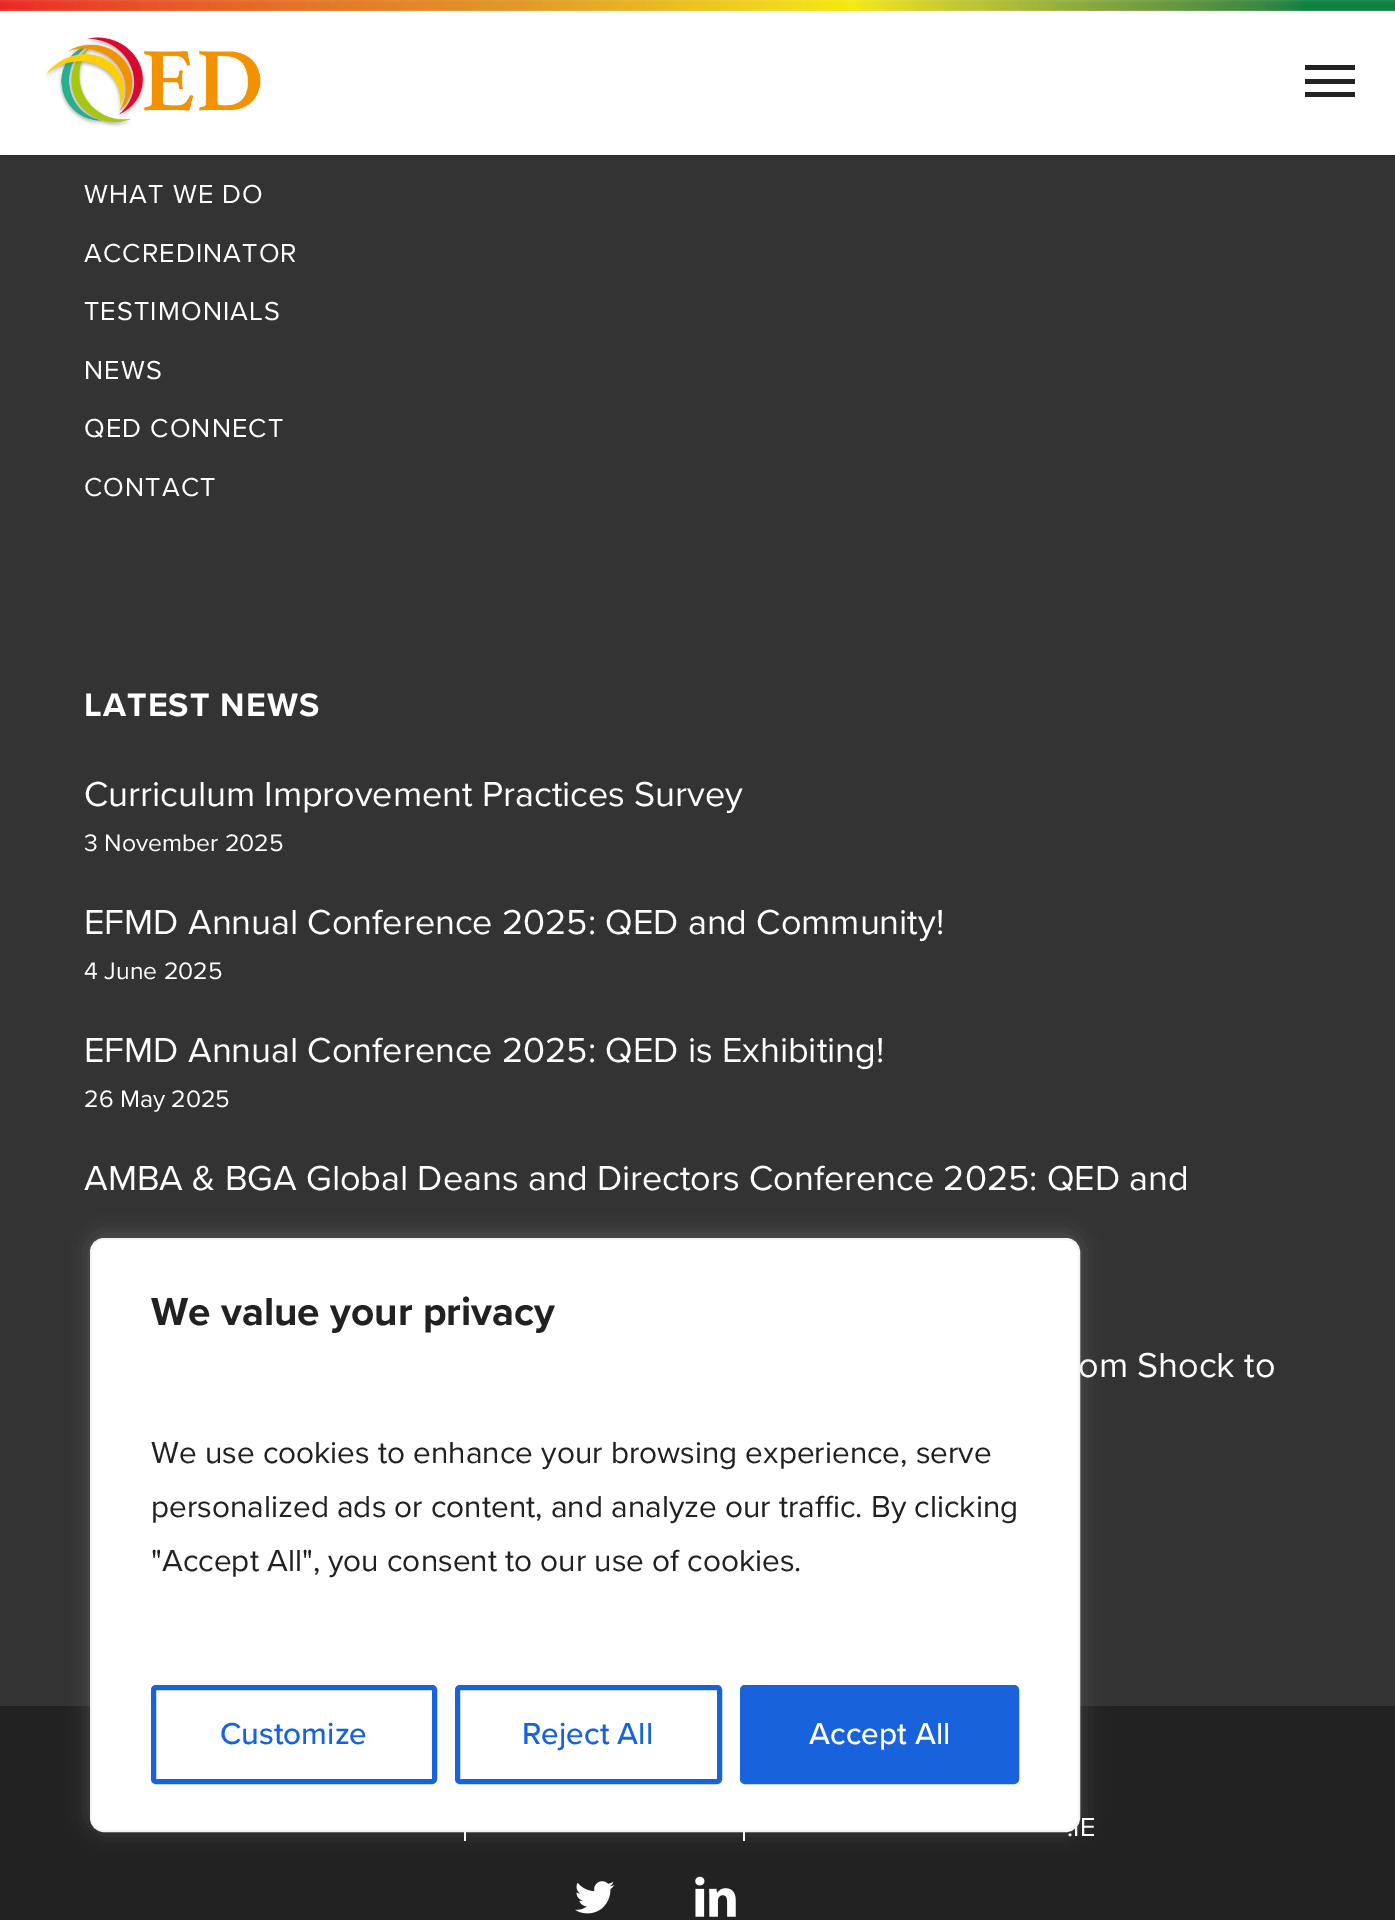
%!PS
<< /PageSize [1395 1920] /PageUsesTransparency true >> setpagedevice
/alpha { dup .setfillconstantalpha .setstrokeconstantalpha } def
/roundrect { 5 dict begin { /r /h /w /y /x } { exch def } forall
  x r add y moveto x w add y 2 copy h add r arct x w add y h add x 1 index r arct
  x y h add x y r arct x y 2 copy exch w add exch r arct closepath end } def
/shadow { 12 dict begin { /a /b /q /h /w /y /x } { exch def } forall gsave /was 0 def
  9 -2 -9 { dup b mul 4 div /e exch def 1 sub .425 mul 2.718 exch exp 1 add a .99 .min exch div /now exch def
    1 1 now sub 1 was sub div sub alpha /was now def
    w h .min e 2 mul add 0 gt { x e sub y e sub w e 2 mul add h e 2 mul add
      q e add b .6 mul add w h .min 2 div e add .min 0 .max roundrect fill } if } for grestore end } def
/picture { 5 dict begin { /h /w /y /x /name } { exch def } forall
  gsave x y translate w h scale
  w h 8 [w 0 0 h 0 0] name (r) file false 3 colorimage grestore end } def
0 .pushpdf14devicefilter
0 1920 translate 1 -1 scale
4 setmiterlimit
0.2 setgray
0 0 1395 1920 rectfill
0 setgray
0 0 1395 155 0 3.5 0.22 shadow
1 setgray
0 0 1395 155 rectfill
(img1.rgb) 0 0 1395 11 picture
(img2.rgb) 45 37 216 90 picture
0.133 setgray
1305 65 50 5 rectfill
1305 92 50 5 rectfill
1305 79 50 5 rectfill
/ProximaNova-Regular [27 0 0 -27 0 0] selectfont
1 setgray
84 203 moveto 1.1 0 (WHAT WE DO) ashow
84 262 moveto 1.1 0 (ACCREDINATOR) ashow
84 320 moveto 1.1 0 (TESTIMONIALS) ashow
84 379 moveto 1.1 0 (NEWS) ashow
84 437 moveto 1.1 0 (QED CONNECT) ashow
84 496 moveto 1.1 0 (CONTACT) ashow
/ProximaNova-Bold [33.75 0 0 -33.75 0 0] selectfont
84 716 moveto 1.1 0 (LATEST NEWS) ashow
/ProximaNova-Regular [36 0 0 -36 0 0] selectfont
84 806 moveto (Curriculum Improvement Practices Survey) show
/ProximaNova-Regular [24.75 0 0 -24.75 0 0] selectfont
84 851 moveto (3 November 2025) show
/ProximaNova-Regular [36 0 0 -36 0 0] selectfont
84 934 moveto (EFMD Annual Conference 2025: QED and Community!) show
/ProximaNova-Regular [24.75 0 0 -24.75 0 0] selectfont
84 979 moveto (4 June 2025) show
/ProximaNova-Regular [36 0 0 -36 0 0] selectfont
84 1062 moveto (EFMD Annual Conference 2025: QED is Exhibiting!) show
/ProximaNova-Regular [24.75 0 0 -24.75 0 0] selectfont
84 1107 moveto (26 May 2025) show
/ProximaNova-Regular [36 0 0 -36 0 0] selectfont
84 1190 moveto (AMBA & BGA Global Deans and Directors Conference 2025: QED and) show
1078 1377 moveto (om Shock to) show
0.133 setgray
0 1706 1395 214 rectfill
1 setgray
464 1832 2 9 rectfill
743 1832 2 9 rectfill
/ProximaNova-Regular [27 0 0 -27 0 0] selectfont
1067 1836 moveto (.IE) show
(img3.rgb) 575 1881 40 33 picture
(img4.rgb) 695 1876 41 41 picture
0.675 0.671 0.671 setrgbcolor
90 1235 990 594 14 11 0.3 shadow
1 setgray
91 1239 988 592 13 roundrect gsave fill grestore
0.957 setgray
2 setlinewidth
stroke
/ProximaNova-Bold [40.5 0 0 -40.5 0 0] selectfont
0.129 setgray
151 1325 moveto (We value your privacy) show
/ProximaNova-Regular [31.5 0 0 -31.5 0 0] selectfont
151 1463 moveto (We use cookies to enhance your browsing experience, serve) show
151 1517 moveto (personalized ads or content, and analyze our traffic. By clicking) show
151 1571 moveto ("Accept All", you consent to our use of cookies.) show
0.094 0.388 0.863 setrgbcolor
5 setlinewidth
153.5 1687.5 281 94 2.5 roundrect stroke
/ProximaNova-Medium [31.5 0 0 -31.5 0 0] selectfont
220 1744 moveto (Customize) show
457.5 1687.5 262 94 2.5 roundrect stroke
522 1744 moveto (Reject All) show
742.5 1687.5 274 94 2.5 roundrect gsave fill grestore
stroke
1 setgray
809 1744 moveto (Accept All) show
.poppdf14devicefilter showpage
